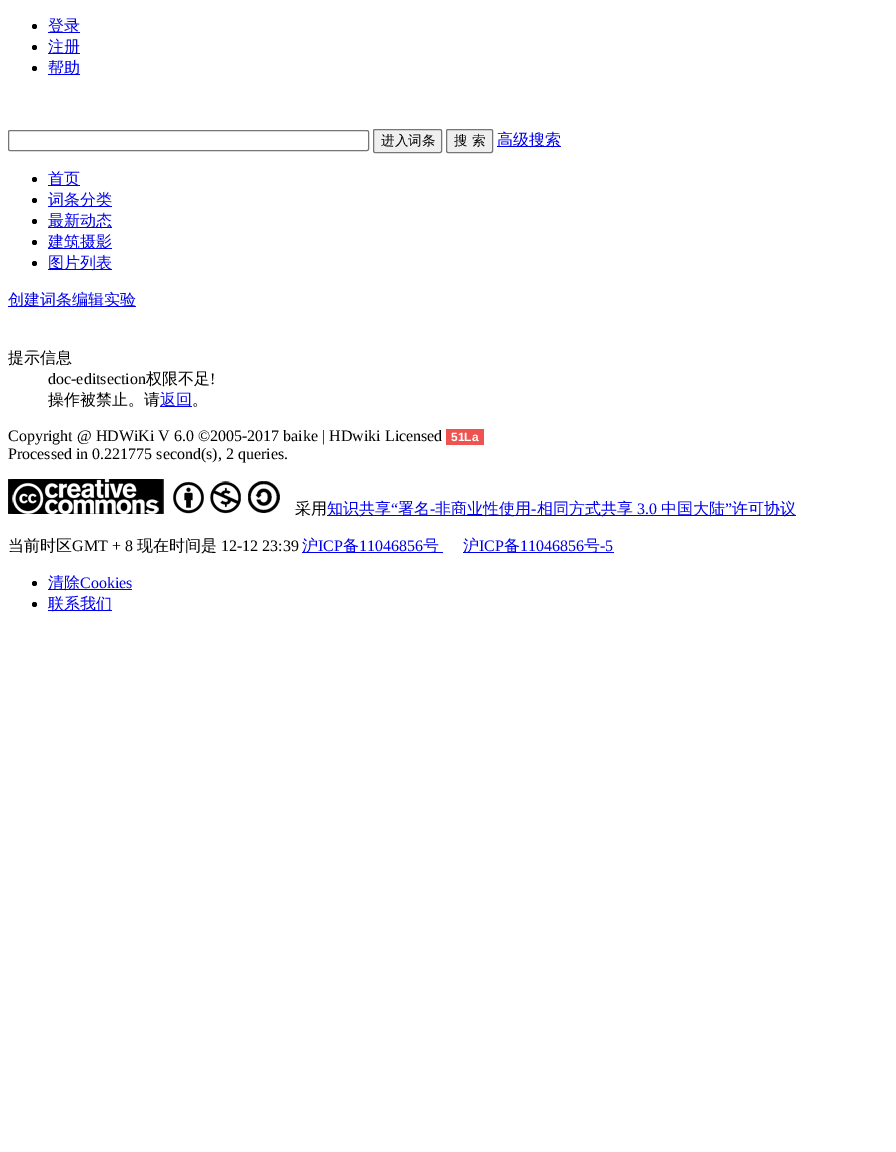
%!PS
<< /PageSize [896 1152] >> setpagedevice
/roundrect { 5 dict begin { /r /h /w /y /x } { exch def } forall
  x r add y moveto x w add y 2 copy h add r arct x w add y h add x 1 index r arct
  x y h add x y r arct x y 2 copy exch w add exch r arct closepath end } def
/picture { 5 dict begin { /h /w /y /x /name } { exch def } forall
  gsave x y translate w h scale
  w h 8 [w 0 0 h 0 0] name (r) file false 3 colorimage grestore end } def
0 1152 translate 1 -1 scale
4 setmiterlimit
1 setgray
0 0 896 1152 rectfill
0 setgray
newpath 34.5 26.5 2.5 0 360 arc closepath fill
0 0 0.933 setrgbcolor
48 32 32 1 rectfill
/WenQuanYiZenHei-Medium [16 0 0 -16 0 0] selectfont
48 31 moveto (登录) show
0 setgray
newpath 34.5 47.5 2.5 0 360 arc closepath fill
0 0 0.933 setrgbcolor
48 53 32 1 rectfill
48 52 moveto (注册) show
0 setgray
newpath 34.5 68.5 2.5 0 360 arc closepath fill
0 0 0.933 setrgbcolor
48 74 32 1 rectfill
48 73 moveto (帮助) show
0.463 setgray
8.5 130.5 360 20 1.5 roundrect stroke
0.937 setgray
373.5 129.5 68 23 1.5 roundrect gsave fill grestore
0.463 setgray
stroke
/WenQuanYiZenHei-Medium [13.5 0 0 -13.5 0 0] selectfont
0 setgray
381 145 moveto (进入词条) show
0.937 setgray
446.5 129.5 46 23 1.5 roundrect gsave fill grestore
0.463 setgray
stroke
0 setgray
454 145 moveto (搜 索) show
0 0 0.933 setrgbcolor
497 146 64 1 rectfill
/WenQuanYiZenHei-Medium [16 0 0 -16 0 0] selectfont
497 145 moveto (高级搜索) show
0 setgray
newpath 34.5 179.5 2.5 0 360 arc closepath fill
0 0 0.933 setrgbcolor
48 185 32 1 rectfill
48 184 moveto (首页) show
0 setgray
newpath 34.5 200.5 2.5 0 360 arc closepath fill
0 0 0.933 setrgbcolor
48 206 64 1 rectfill
48 205 moveto (词条分类) show
0 setgray
newpath 34.5 221.5 2.5 0 360 arc closepath fill
0 0 0.933 setrgbcolor
48 227 64 1 rectfill
48 226 moveto (最新动态) show
0 setgray
newpath 34.5 242.5 2.5 0 360 arc closepath fill
0 0 0.933 setrgbcolor
48 248 64 1 rectfill
48 247 moveto (建筑摄影) show
0 setgray
newpath 34.5 263.5 2.5 0 360 arc closepath fill
0 0 0.933 setrgbcolor
48 269 64 1 rectfill
48 268 moveto (图片列表) show
8 306 128 1 rectfill
8 305 moveto (创建词条编辑实验) show
0 setgray
8 363 moveto (提示信息) show
/LiberationSerif-Regular [16 0 0 -16 0 0] selectfont
48 384 moveto (doc-editsection) show
/WenQuanYiZenHei-Medium [16 0 0 -16 0 0] selectfont
146 384 moveto (权限不足) show
/LiberationSerif-Regular [16 0 0 -16 0 0] selectfont
210 384 moveto (!) show
/WenQuanYiZenHei-Medium [16 0 0 -16 0 0] selectfont
48 405 moveto (操作被禁止。请) show
0 0 0.933 setrgbcolor
160 406 32 1 rectfill
160 405 moveto (返回) show
0 setgray
192 405 moveto (。) show
/LiberationSerif-Regular [16 0 0 -16 0 0] selectfont
8 441 moveto (Copyright @ HDWiKi V 6.0 ©2005-2017 baike | HDwiki Licensed) show
0.937 0.325 0.314 setrgbcolor
446 429 38 16 rectfill
/LiberationSans-Bold [12 0 0 -12 0 0] selectfont
1 setgray
451 441 moveto (51La) show
/LiberationSerif-Regular [16 0 0 -16 0 0] selectfont
0 setgray
8 459 moveto (Processed in 0.221775 second\(s\), 2 queries.) show
(img1.rgb) 8 479 272 35 picture
/WenQuanYiZenHei-Medium [16 0 0 -16 0 0] selectfont
295 514 moveto (采用) show
0 0 0.933 setrgbcolor
327 515 469 1 rectfill
327 514 moveto (知识共享) show
/LiberationSerif-Regular [16 0 0 -16 0 0] selectfont
391 514 moveto (“) show
/WenQuanYiZenHei-Medium [16 0 0 -16 0 0] selectfont
398 514 moveto (署名) show
435 514 moveto (非商业性使用) show
/LiberationSerif-Regular [16 0 0 -16 0 0] selectfont
531 514 moveto (-) show
/WenQuanYiZenHei-Medium [16 0 0 -16 0 0] selectfont
537 514 moveto (相同方式共享) show
/LiberationSerif-Regular [16 0 0 -16 0 0] selectfont
637 514 moveto (3.0) show
/WenQuanYiZenHei-Medium [16 0 0 -16 0 0] selectfont
661 514 moveto (中国大陆) show
/LiberationSerif-Regular [16 0 0 -16 0 0] selectfont
725 514 moveto (”) show
/WenQuanYiZenHei-Medium [16 0 0 -16 0 0] selectfont
732 514 moveto (许可协议) show
/LiberationSerif-Regular [16 0 0 -16 0 0] selectfont
430 514 moveto (-) show
/WenQuanYiZenHei-Medium [16 0 0 -16 0 0] selectfont
0 setgray
8 551 moveto (当前时区) show
/LiberationSerif-Regular [16 0 0 -16 0 0] selectfont
72 551 moveto (GMT + 8) show
/WenQuanYiZenHei-Medium [16 0 0 -16 0 0] selectfont
137 551 moveto (现在时间是) show
/LiberationSerif-Regular [16 0 0 -16 0 0] selectfont
221 551 moveto (12-12 23:39) show
0 0 0.933 setrgbcolor
302 552 141 1 rectfill
/WenQuanYiZenHei-Medium [16 0 0 -16 0 0] selectfont
302 551 moveto (沪) show
/LiberationSerif-Regular [16 0 0 -16 0 0] selectfont
318 551 moveto (ICP) show
/WenQuanYiZenHei-Medium [16 0 0 -16 0 0] selectfont
343 551 moveto (备) show
/LiberationSerif-Regular [16 0 0 -16 0 0] selectfont
359 551 moveto (11046856) show
/WenQuanYiZenHei-Medium [16 0 0 -16 0 0] selectfont
423 551 moveto (号) show
463 552 151 1 rectfill
463 551 moveto (沪) show
/LiberationSerif-Regular [16 0 0 -16 0 0] selectfont
479 551 moveto (ICP) show
/WenQuanYiZenHei-Medium [16 0 0 -16 0 0] selectfont
504 551 moveto (备) show
/LiberationSerif-Regular [16 0 0 -16 0 0] selectfont
520 551 moveto (11046856) show
/WenQuanYiZenHei-Medium [16 0 0 -16 0 0] selectfont
584 551 moveto (号) show
/LiberationSerif-Regular [16 0 0 -16 0 0] selectfont
600 551 moveto (-5) show
0 setgray
newpath 34.5 583.5 2.5 0 360 arc closepath fill
0 0 0.933 setrgbcolor
48 589 84 1 rectfill
/WenQuanYiZenHei-Medium [16 0 0 -16 0 0] selectfont
48 588 moveto (清除) show
/LiberationSerif-Regular [16 0 0 -16 0 0] selectfont
80 588 moveto (Cookies) show
0 setgray
newpath 34.5 604.5 2.5 0 360 arc closepath fill
0 0 0.933 setrgbcolor
48 610 64 1 rectfill
/WenQuanYiZenHei-Medium [16 0 0 -16 0 0] selectfont
48 609 moveto (联系我们) show
showpage
